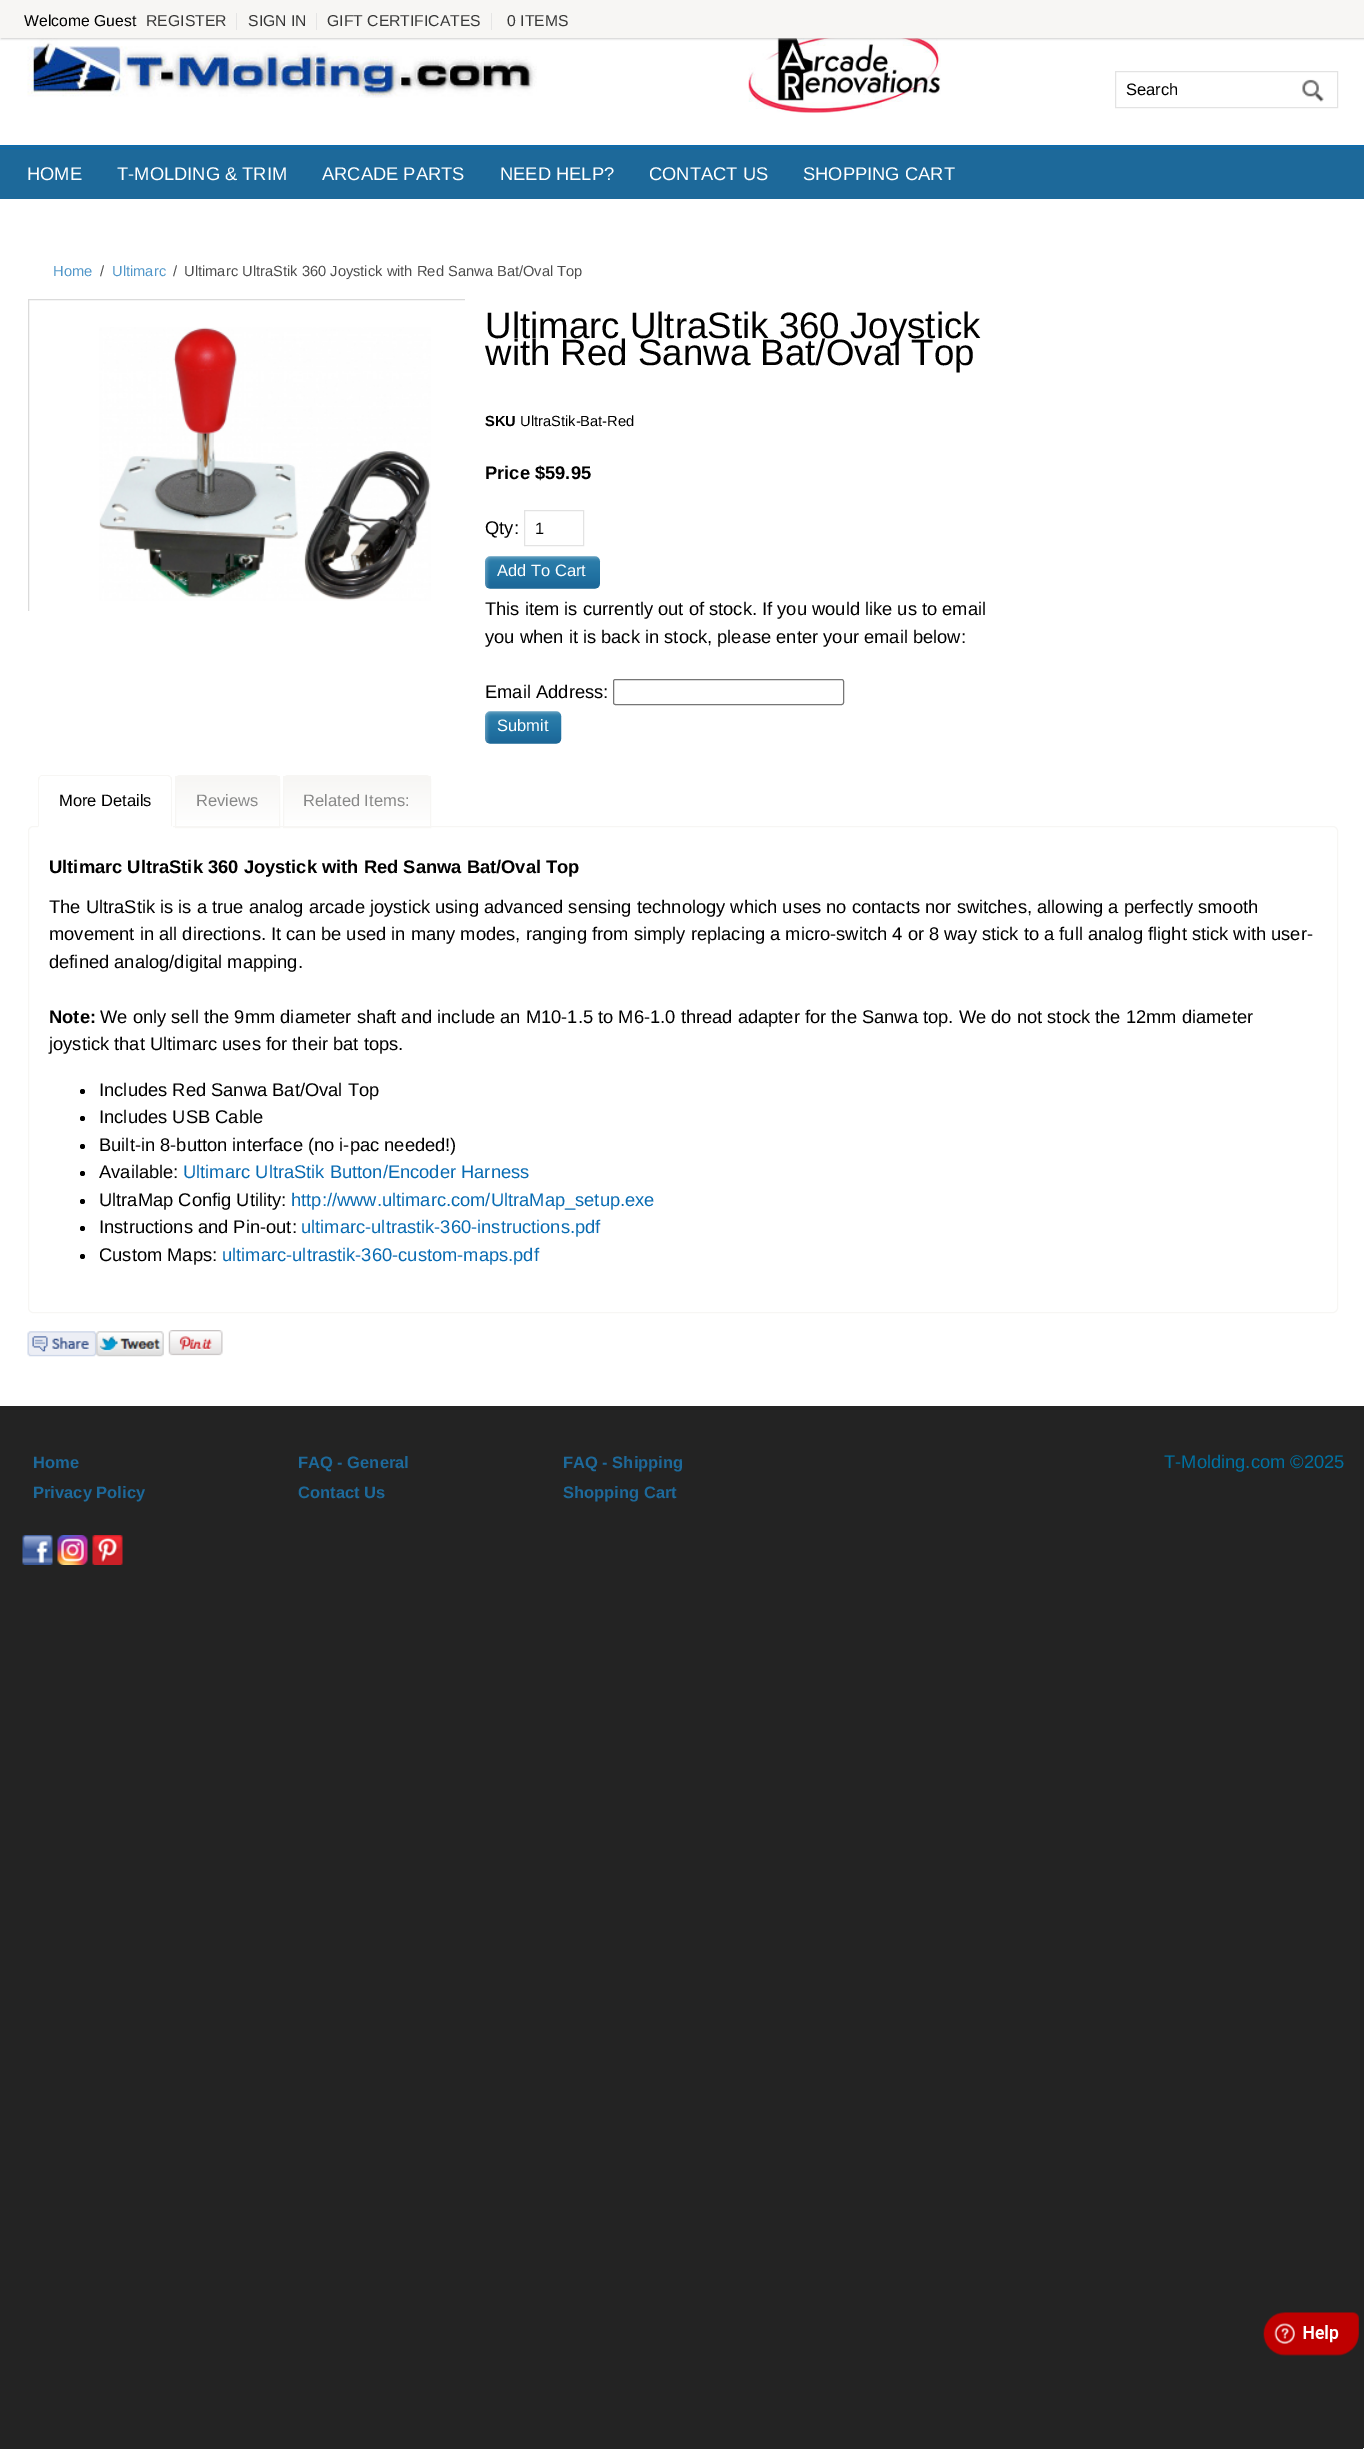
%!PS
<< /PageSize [1364 2449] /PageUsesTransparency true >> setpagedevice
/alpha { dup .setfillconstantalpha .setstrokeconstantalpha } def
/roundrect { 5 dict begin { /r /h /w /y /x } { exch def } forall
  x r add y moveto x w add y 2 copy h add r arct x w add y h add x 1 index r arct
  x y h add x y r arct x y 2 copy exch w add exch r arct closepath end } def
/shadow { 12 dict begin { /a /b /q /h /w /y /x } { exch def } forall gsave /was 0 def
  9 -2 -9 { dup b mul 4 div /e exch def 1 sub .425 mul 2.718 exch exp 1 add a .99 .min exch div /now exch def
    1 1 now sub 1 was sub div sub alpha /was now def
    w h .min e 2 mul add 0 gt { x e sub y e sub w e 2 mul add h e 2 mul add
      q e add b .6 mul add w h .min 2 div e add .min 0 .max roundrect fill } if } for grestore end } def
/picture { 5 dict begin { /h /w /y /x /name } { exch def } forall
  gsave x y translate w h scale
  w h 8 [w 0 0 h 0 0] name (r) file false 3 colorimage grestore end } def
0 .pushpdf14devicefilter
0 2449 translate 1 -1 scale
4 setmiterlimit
0.137 setgray
0 0 1364 2449 rectfill
1 setgray
0 38 1364 107 rectfill
(img1.rgb) 27 38 510 60 picture
(img2.rgb) 748 38 193 75 picture
0.8 setgray
1 1 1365 38 0 1 1 shadow
0.969 0.965 0.957 setrgbcolor
0 0 1364 38 rectfill
/LiberationSans-Regular [15.75 0 0 -15.75 0 0] selectfont
0 setgray
24 26 moveto (Welcome Guest) show
0.22 setgray
146 26 moveto (REGISTER) show
0.898 setgray
236 13 1 17 rectfill
0.22 setgray
248 26 moveto (SIGN IN) show
0.898 setgray
316 13 1 17 rectfill
0.22 setgray
327 26 moveto (GIFT CERTIFICATES) show
0.898 setgray
491 13 1 17 rectfill
0.22 setgray
507 26 moveto (0 ITEMS) show
0.89 setgray
1115.5 71.5 222 36 rectstroke
/LiberationSans-Regular [16.5 0 0 -16.5 0 0] selectfont
0 setgray
1126 95 moveto (Search) show
(img3.rgb) 1302 79 22 23 picture
0.114 0.412 0.604 setrgbcolor
0 146 1364 53 rectfill
0.031 0.42 0.698 setrgbcolor
0 145 1364 1 rectfill
0 148 1364 1 rectfill
/LiberationSans-Regular [18.33 0 0 -18.33 0 0] selectfont
1 setgray
27 180 moveto (HOME) show
117 180 moveto (T-MOLDING & TRIM) show
322 180 moveto (ARCADE PARTS) show
500 180 moveto (NEED HELP?) show
649 180 moveto (CONTACT US) show
803 180 moveto (SHOPPING CART) show
0 199 1364 1207 rectfill
/LiberationSans-Regular [14.7 0 0 -14.7 0 0] selectfont
0.322 0.592 0.788 setrgbcolor
53 276 moveto (Home) show
0.302 setgray
100 276 moveto (/) show
0.322 0.592 0.788 setrgbcolor
112 276 moveto (Ultimarc) show
0.302 setgray
173 276 moveto (/) show
184 276 moveto (Ultimarc UltraStik 360 Joystick with Red Sanwa Bat/Oval Top) show
/LiberationSans-Regular [36.7 0 0 -36.7 0 0] selectfont
0 setgray
485 338 moveto (Ultimarc UltraStik 360 Joystick) show
485 365 moveto (with Red Sanwa Bat/Oval Top) show
/LiberationSans-Bold [14.7 0 0 -14.7 0 0] selectfont
485 426 moveto (SKU) show
/LiberationSans-Bold [18.33 0 0 -18.33 0 0] selectfont
485 479 moveto (Price $59.95) show
/LiberationSans-Regular [18.33 0 0 -18.33 0 0] selectfont
485 534 moveto (Qty:) show
485 615 moveto (This item is currently out of stock. If you would like us to email) show
485 643 moveto (you when it is back in stock, please enter your email below:) show
gsave
28 299 437 312 rectclip
0.859 setgray
28.5 299.5 462 338 rectstroke
grestore
(img4.rgb) 99 327 332 274 picture
/LiberationSans-Regular [14.7 0 0 -14.7 0 0] selectfont
520 426 moveto (UltraStik-Bat-Red) show
0.89 setgray
524.5 510.5 59 35 rectstroke
/LiberationSans-Regular [16.5 0 0 -16.5 0 0] selectfont
0 setgray
535 534 moveto (1) show
(img5.rgb) 484 556 117 33 picture
1 setgray
497 576 moveto (Add To Cart) show
/LiberationSans-Regular [18.33 0 0 -18.33 0 0] selectfont
0 setgray
485 698 moveto (Email Address:) show
0.463 setgray
613.5 679.5 230 25 2 roundrect stroke
(img6.rgb) 484 711 78 33 picture
/LiberationSans-Regular [16.5 0 0 -16.5 0 0] selectfont
1 setgray
497 731 moveto (Submit) show
0.969 0.965 0.957 setrgbcolor
28.5 826.5 1309 486 4.5 roundrect stroke
1 setgray
newpath 43 775 moveto 168 775 lineto 171 775 173 777 173 780 curveto 173 828 lineto 38 828 lineto 38 780 lineto 38 777 40 775 43 775 curveto closepath fill
0.969 0.965 0.957 setrgbcolor
newpath 42 775 moveto 41 775 40 776 39 777 curveto 40 777 lineto 41 776 lineto 168 776 lineto 170 777 lineto 171 777 lineto 170 776 169 775 168 775 curveto closepath fill
newpath 171 777 moveto 172 777 172 779 172 780 curveto 172 827 lineto 171 826 lineto 171 780 lineto 170 777 lineto closepath fill
1 setgray
newpath 38 828 moveto 39 826 lineto 171 826 lineto 172 827 lineto 172 828 lineto closepath fill
0.969 0.965 0.957 setrgbcolor
newpath 39 777 moveto 38 777 38 779 38 780 curveto 38 827 lineto 39 826 lineto 39 780 lineto 40 777 lineto closepath fill
0 setgray
59 806 moveto (More Details) show
gsave
newpath 180 775 moveto 275 775 lineto 278 775 280 777 280 780 curveto 280 828 lineto 175 828 lineto 175 780 lineto 175 777 177 775 180 775 curveto closepath clip newpath
gsave newpath 175 776 moveto 280 776 lineto 280 826 lineto 175 826 lineto closepath clip newpath
<< /ShadingType 2 /ColorSpace /DeviceRGB /Coords [176 776 176 826] /Extend [true true] /Function << /FunctionType 2 /Domain [0 1] /C0 [0.969 0.965 0.957] /C1 [1 1 1] /N 1 >> >> shfill grestore
grestore
0.969 0.965 0.957 setrgbcolor
newpath 180 775.5 moveto 275 775.5 lineto 277.5 775.5 279.5 777.5 279.5 780 curveto 279.5 827.5 lineto 175.5 827.5 lineto 175.5 780 lineto 175.5 777.5 177.5 775.5 180 775.5 curveto closepath stroke
0.533 setgray
196 806 moveto (Reviews) show
gsave
newpath 288 775 moveto 426 775 lineto 429 775 431 777 431 780 curveto 431 828 lineto 283 828 lineto 283 780 lineto 283 777 285 775 288 775 curveto closepath clip newpath
gsave newpath 283 776 moveto 431 776 lineto 431 826 lineto 283 826 lineto closepath clip newpath
<< /ShadingType 2 /ColorSpace /DeviceRGB /Coords [284 776 284 826] /Extend [true true] /Function << /FunctionType 2 /Domain [0 1] /C0 [0.969 0.965 0.957] /C1 [1 1 1] /N 1 >> >> shfill grestore
grestore
0.969 0.965 0.957 setrgbcolor
newpath 288 775.5 moveto 426 775.5 lineto 428.5 775.5 430.5 777.5 430.5 780 curveto 430.5 827.5 lineto 283.5 827.5 lineto 283.5 780 lineto 283.5 777.5 285.5 775.5 288 775.5 curveto closepath stroke
0.533 setgray
303 806 moveto (Related Items:) show
/LiberationSans-Bold [18.33 0 0 -18.33 0 0] selectfont
0 setgray
49 873 moveto (Ultimarc UltraStik 360 Joystick with Red Sanwa Bat/Oval Top) show
/LiberationSans-Regular [18.33 0 0 -18.33 0 0] selectfont
49 913 moveto (The UltraStik is is a true analog arcade joystick using advanced sensing technology which uses no contacts nor switches, allowing a perfectly smooth) show
49 940 moveto (movement in all directions. It can be used in many modes, ranging from simply replacing a micro-switch 4 or 8 way stick to a full analog flight stick with user-) show
49 968 moveto (defined analog/digital mapping.) show
/LiberationSans-Bold [18.33 0 0 -18.33 0 0] selectfont
49 1023 moveto (Note:) show
/LiberationSans-Regular [18.33 0 0 -18.33 0 0] selectfont
100 1023 moveto (We only sell the 9mm diameter shaft and include an M10-1.5 to M6-1.0 thread adapter for the Sanwa top. We do not stock the 12mm diameter) show
49 1050 moveto (joystick that Ultimarc uses for their bat tops.) show
newpath 82.5 1091.5 2.5 0 360 arc closepath fill
99 1096 moveto (Includes Red Sanwa Bat/Oval Top) show
newpath 82.5 1118.5 2.5 0 360 arc closepath fill
99 1123 moveto (Includes USB Cable) show
newpath 82.5 1146.5 2.5 0 360 arc closepath fill
99 1151 moveto (Built-in 8-button interface \(no i-pac needed!\)) show
newpath 82.5 1173.5 2.5 0 360 arc closepath fill
99 1178 moveto (Available:) show
0.031 0.42 0.698 setrgbcolor
183 1178 moveto (Ultimarc UltraStik Button/Encoder Harness) show
0 setgray
newpath 82.5 1201.5 2.5 0 360 arc closepath fill
99 1206 moveto (UltraMap Config Utility:) show
0.031 0.42 0.698 setrgbcolor
291 1206 moveto (http://www.ultimarc.com/UltraMap_setup.exe) show
0 setgray
newpath 82.5 1228.5 2.5 0 360 arc closepath fill
99 1233 moveto (Instructions and Pin-out:) show
0.031 0.42 0.698 setrgbcolor
301 1233 moveto (ultimarc-ultrastik-360-instructions.pdf) show
0 setgray
newpath 82.5 1256.5 2.5 0 360 arc closepath fill
99 1261 moveto (Custom Maps:) show
0.031 0.42 0.698 setrgbcolor
222 1261 moveto (ultimarc-ultrastik-360-custom-maps.pdf) show
(img7.rgb) 27 1331 70 26 picture
(img8.rgb) 96 1331 68 26 picture
(img9.rgb) 168 1330 55 26 picture
/LiberationSans-Bold [16.5 0 0 -16.5 0 0] selectfont
0.114 0.412 0.604 setrgbcolor
33 1468 moveto (Home) show
298 1468 moveto (FAQ - General) show
563 1468 moveto (FAQ - Shipping) show
/LiberationSans-Regular [18.33 0 0 -18.33 0 0] selectfont
0 0.439 0.627 setrgbcolor
1164 1468 moveto (T-Molding.com ©2025) show
/LiberationSans-Bold [16.5 0 0 -16.5 0 0] selectfont
0.114 0.412 0.604 setrgbcolor
33 1498 moveto (Privacy Policy) show
298 1498 moveto (Contact Us) show
563 1498 moveto (Shopping Cart) show
(img10.rgb) 22 1535 31 30 picture
(img11.rgb) 57 1535 31 30 picture
(img12.rgb) 92 1535 31 30 picture
(img13.rgb) 1263 2312 96 44 picture
0.961 setgray
1363 2448 1 1 rectfill
.poppdf14devicefilter showpage
